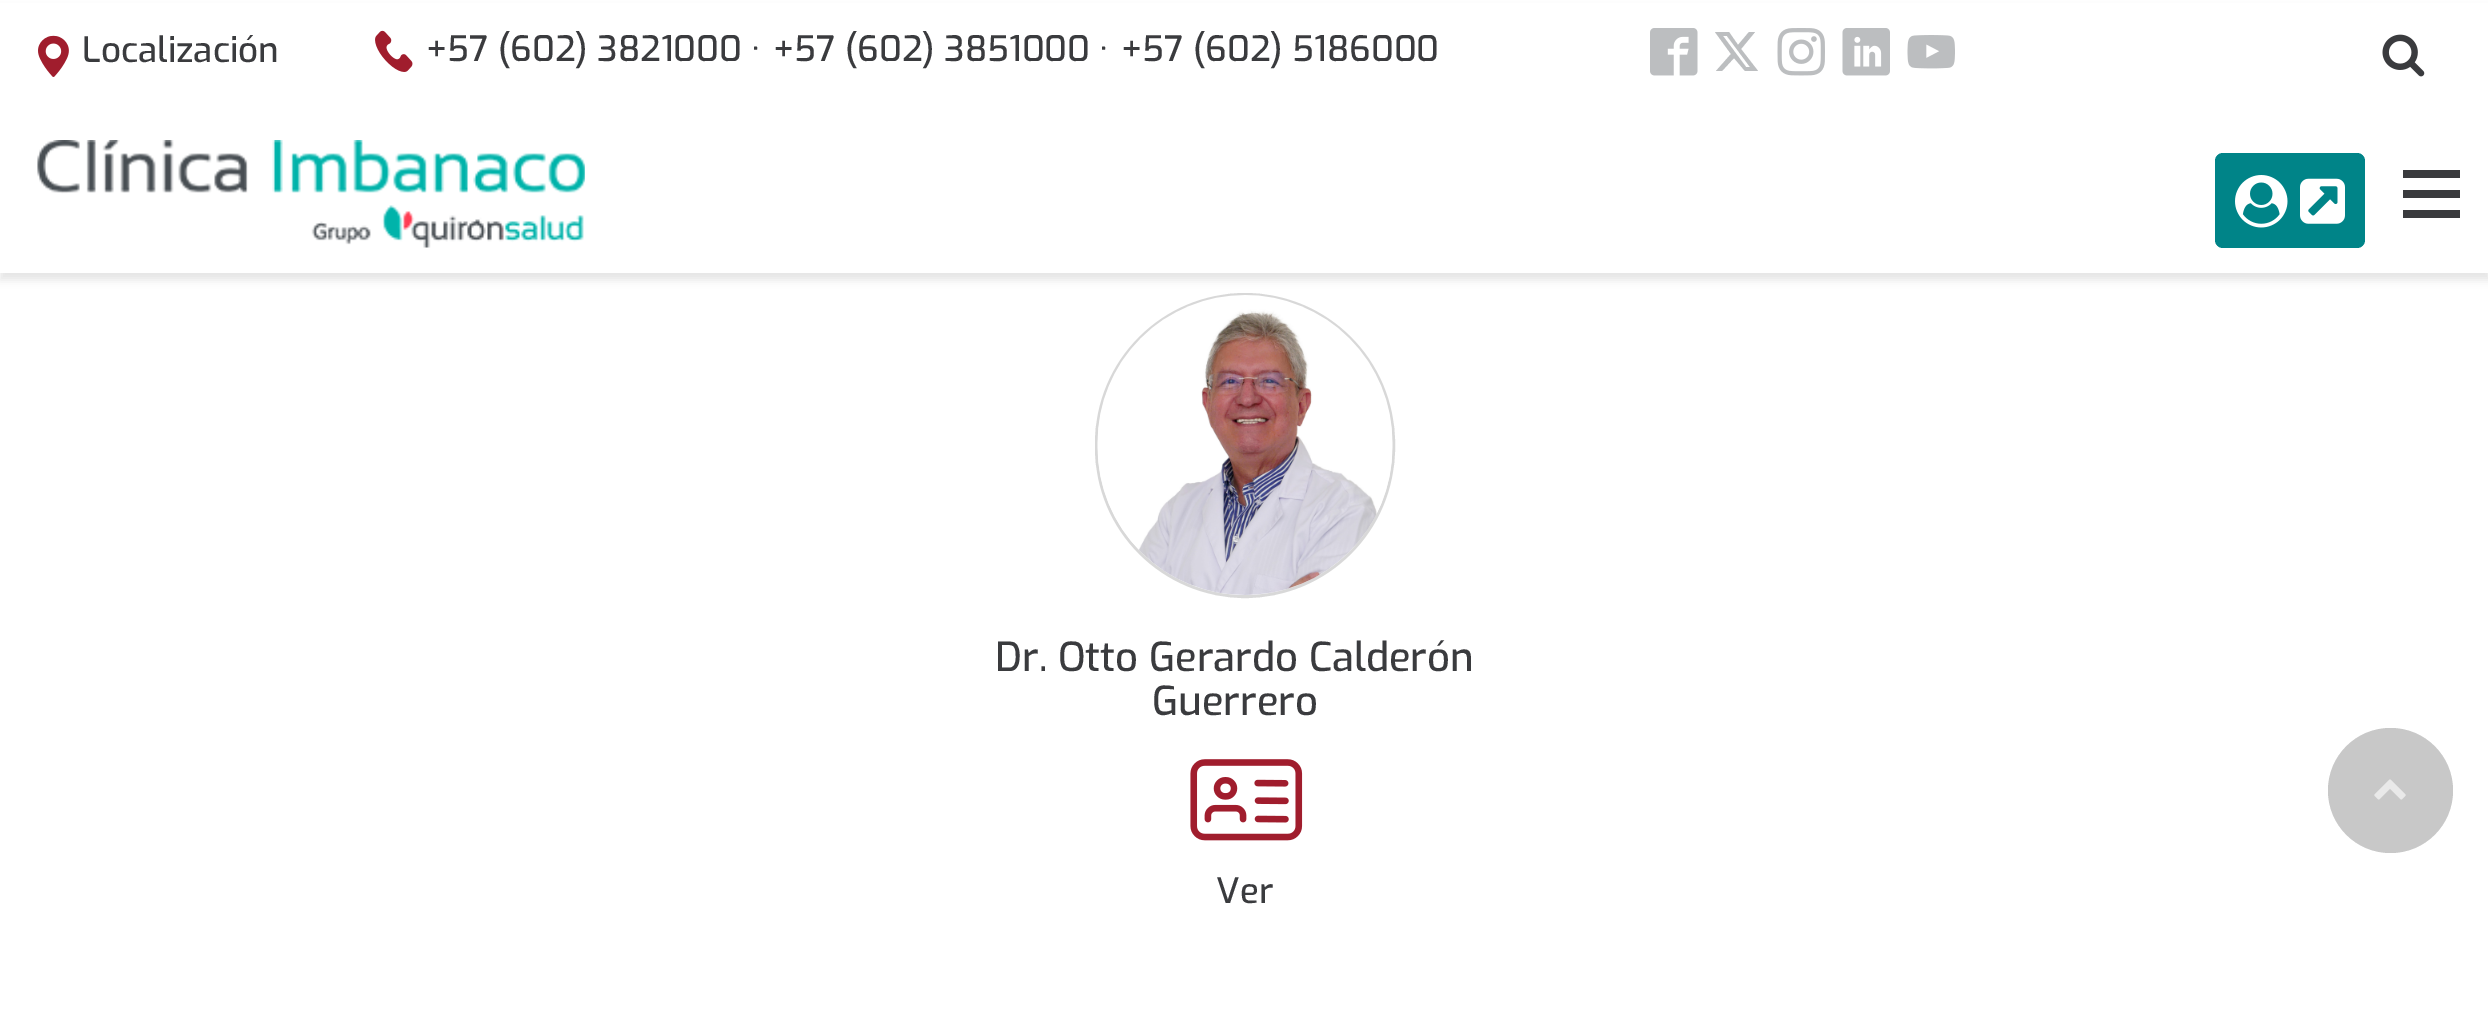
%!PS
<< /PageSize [2488 1015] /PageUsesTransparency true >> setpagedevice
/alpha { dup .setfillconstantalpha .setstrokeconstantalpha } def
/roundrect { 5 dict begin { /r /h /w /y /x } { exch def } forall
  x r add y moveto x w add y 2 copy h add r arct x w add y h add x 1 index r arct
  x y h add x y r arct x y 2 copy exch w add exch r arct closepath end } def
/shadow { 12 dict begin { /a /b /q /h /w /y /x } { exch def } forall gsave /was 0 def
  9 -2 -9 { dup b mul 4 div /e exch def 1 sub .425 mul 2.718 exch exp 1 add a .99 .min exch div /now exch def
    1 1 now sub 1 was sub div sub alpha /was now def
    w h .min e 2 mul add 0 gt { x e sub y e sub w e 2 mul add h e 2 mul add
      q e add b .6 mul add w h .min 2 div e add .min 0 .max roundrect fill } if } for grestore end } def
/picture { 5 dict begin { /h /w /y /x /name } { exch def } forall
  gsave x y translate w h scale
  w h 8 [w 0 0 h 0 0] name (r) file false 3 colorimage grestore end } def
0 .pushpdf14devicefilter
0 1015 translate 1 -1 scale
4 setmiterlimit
1 setgray
0 0 2488 1015 rectfill
0 setgray
0 8 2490 272 0 4 0.1 shadow
1 setgray
0 3 2488 270 rectfill
(img1.rgb) 38 35 31 42 picture
/Exo-Medium [35 0 0 -35 0 0] selectfont
0.227 0.231 0.243 setrgbcolor
82 62 moveto (Localización) show
(img2.rgb) 375 30 38 42 picture
426 61 moveto (+57 \(602\) 3821000 ·) show
773 61 moveto (+57 \(602\) 3851000 ·) show
1121 61 moveto (+57 \(602\) 5186000) show
(img3.rgb) 1650 28 48 48 picture
0.737 0.745 0.753 setrgbcolor
newpath 1749 32 moveto 1755 32 lineto 1741 49 lineto 1758 71 lineto 1745 71 lineto 1734 58 lineto 1722 71 lineto 1716 71 lineto 1731 54 lineto 1715 32 lineto 1729 32 lineto 1738 45 lineto closepath 1746 67 moveto 1750 67 lineto 1727 36 lineto 1723 36 lineto closepath fill
(img4.rgb) 1777 28 48 48 picture
(img5.rgb) 1842 28 48 48 picture
(img6.rgb) 1907 35 48 34 picture
(img7.rgb) 2382 34 43 43 picture
0 0.518 0.533 setrgbcolor
2215 153 150 95 8 roundrect fill
(img8.rgb) 2235 175 53 53 picture
(img9.rgb) 2300 178 45 46 picture
(img10.rgb) 37 140 548 108 picture
0.227 0.231 0.243 setrgbcolor
2403 170 57 8 rectfill
2403 190 57 8 rectfill
2403 210 57 8 rectfill
0.847 setgray
3 setlinewidth
1096.5 294.5 297 302 148.5 roundrect stroke
(img11.rgb) 1097 295 296 300 picture
/Exo-Medium [40 0 0 -40 0 0] selectfont
0.227 0.231 0.243 setrgbcolor
995 671 moveto (Dr. Otto Gerardo Calderón) show
1152 715 moveto (Guerrero) show
(img12.rgb) 1190 759 113 82 picture
/Exo-Medium [35 0 0 -35 0 0] selectfont
1216 903 moveto (Ver) show
0.878 setgray
newpath 2390.5 790.5 62.5 0 360 arc closepath fill
0.2 alpha
0.4 setgray
newpath 2390.5 790.5 62.5 0 360 arc closepath fill
1 alpha
(img13.rgb) 2374 779 32 21 picture
.poppdf14devicefilter showpage
